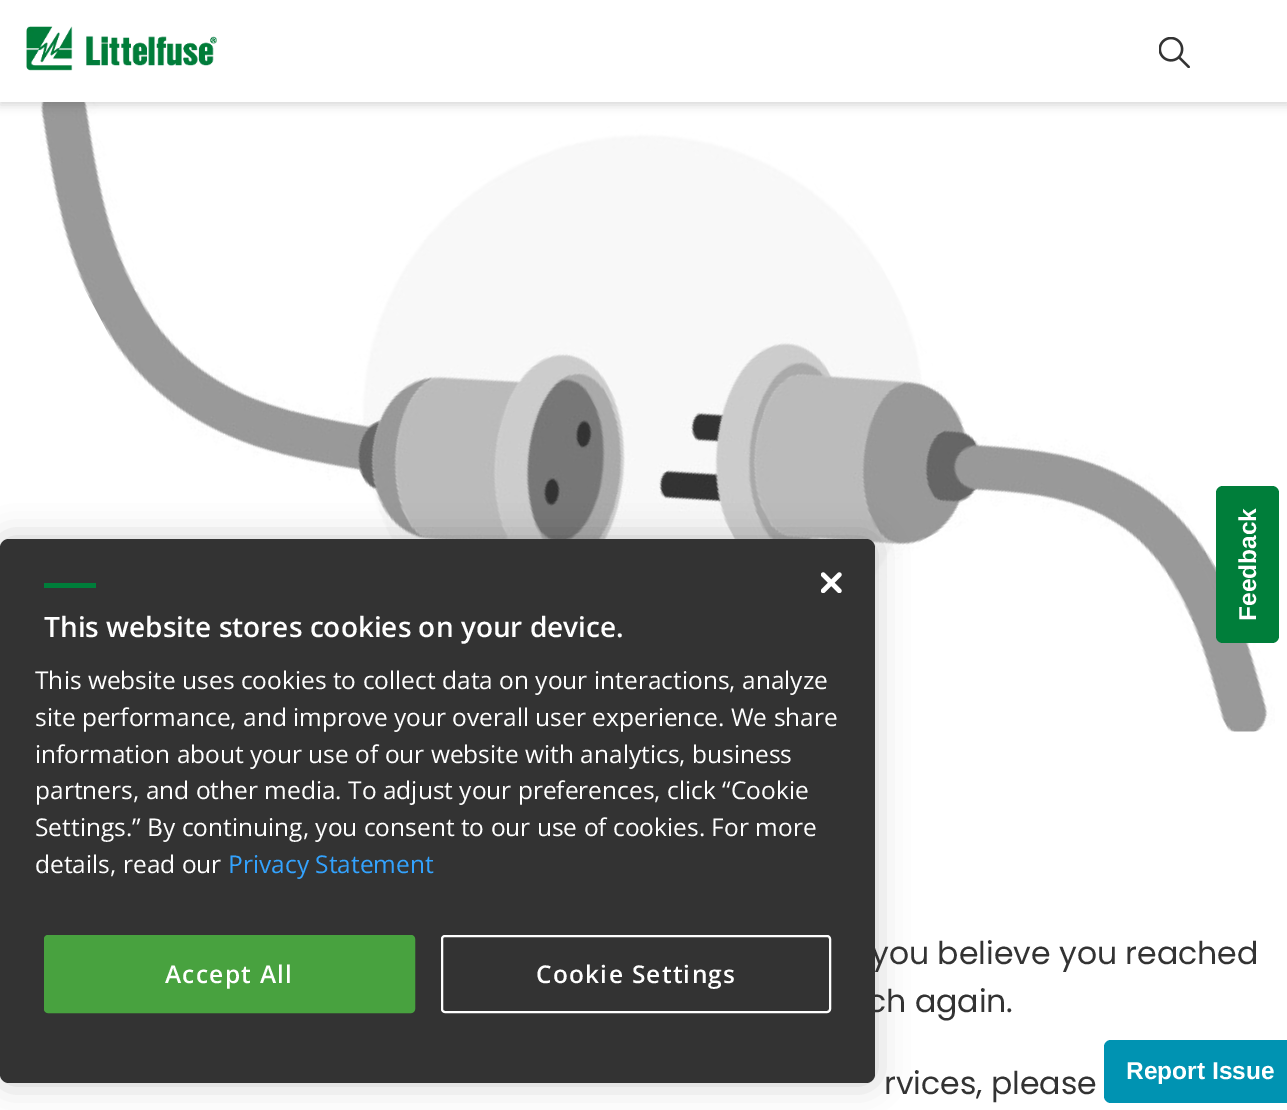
%!PS
<< /PageSize [1287 1110] /PageUsesTransparency true >> setpagedevice
/alpha { dup .setfillconstantalpha .setstrokeconstantalpha } def
/roundrect { 5 dict begin { /r /h /w /y /x } { exch def } forall
  x r add y moveto x w add y 2 copy h add r arct x w add y h add x 1 index r arct
  x y h add x y r arct x y 2 copy exch w add exch r arct closepath end } def
/shadow { 12 dict begin { /a /b /q /h /w /y /x } { exch def } forall gsave /was 0 def
  9 -2 -9 { dup b mul 4 div /e exch def 1 sub .425 mul 2.718 exch exp 1 add a .99 .min exch div /now exch def
    1 1 now sub 1 was sub div sub alpha /was now def
    w h .min e 2 mul add 0 gt { x e sub y e sub w e 2 mul add h e 2 mul add
      q e add b .6 mul add w h .min 2 div e add .min 0 .max roundrect fill } if } for grestore end } def
/picture { 5 dict begin { /h /w /y /x /name } { exch def } forall
  gsave x y translate w h scale
  w h 8 [w 0 0 h 0 0] name (r) file false 3 colorimage grestore end } def
0 .pushpdf14devicefilter
0 1110 translate 1 -1 scale
4 setmiterlimit
1 setgray
0 0 1287 1110 rectfill
(img4.rgb) 40 102 1235 630 picture
0 0.494 0.227 setrgbcolor
newpath 1216 636 moveto 1216 493 lineto 1216 489 1219 486 1223 486 curveto 1272 486 lineto 1276 486 1279 489 1279 493 curveto 1279 636 lineto 1279 640 1276 643 1272 643 curveto 1223 643 lineto 1219 643 1216 640 1216 636 curveto closepath fill
/LiberationSans-Bold [24.5 0 0 -24.5 0 0] selectfont
1 setgray
gsave 1256 621 translate -90 rotate 0 0 moveto (Feedback) show grestore
0 setgray
0 539 875 544 9 16 0.2 shadow
0.2 setgray
0 539 875 544 9 roundrect fill
(img1.rgb) 821 572 21 21 picture
0 0.494 0.227 setrgbcolor
44 583 52 5 rectfill
/OpenSans-SemiBold [28 0 0 -28 0 0] selectfont
1 setgray
44 637 moveto (This website stores cookies on your device.) show
/OpenSans-Regular [24.5 0 0 -24.5 0 0] selectfont
35 689 moveto (This website uses cookies to collect data on your interactions, analyze) show
35 726 moveto (site performance, and improve your overall user experience. We share) show
35 763 moveto (information about your use of our website with analytics, business) show
35 799 moveto (partners, and other media. To adjust your preferences, click “Cookie) show
35 836 moveto (Settings.” By continuing, you consent to our use of cookies. For more) show
35 873 moveto (details, read our) show
0.2 0.639 1 setrgbcolor
228 873 moveto (Privacy Statement) show
0.282 0.635 0.247 setrgbcolor
45 936 369 76 3 roundrect gsave fill grestore
2 setlinewidth
stroke
/OpenSans-SemiBold [24.5 0 0 -24.5 0 0] selectfont
1 setgray
165 983 moveto 1.25 0 (Accept All) ashow
442 936 388 76 3 roundrect stroke
536 983 moveto 1.25 0 (Cookie Settings) ashow
0 setgray
0 2 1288 103 0 5 0.16 shadow
1 setgray
0 0 1287 102 rectfill
(img2.rgb) 26 26 191 45 picture
(img3.rgb) 1159 37 31 31 picture
/Poppins-Regular [31.5 0 0 -31.5 0 0] selectfont
0.2 setgray
871 964 moveto (you believe you reached) show
867 1012 moveto (ch again.) show
884 1094 moveto (rvices, please) show
0 0.576 0.698 setrgbcolor
1104 1040 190 63 7 roundrect fill
/LiberationSans-Bold [24.5 0 0 -24.5 0 0] selectfont
1 setgray
1126 1079 moveto (Report Issue) show
.poppdf14devicefilter showpage
